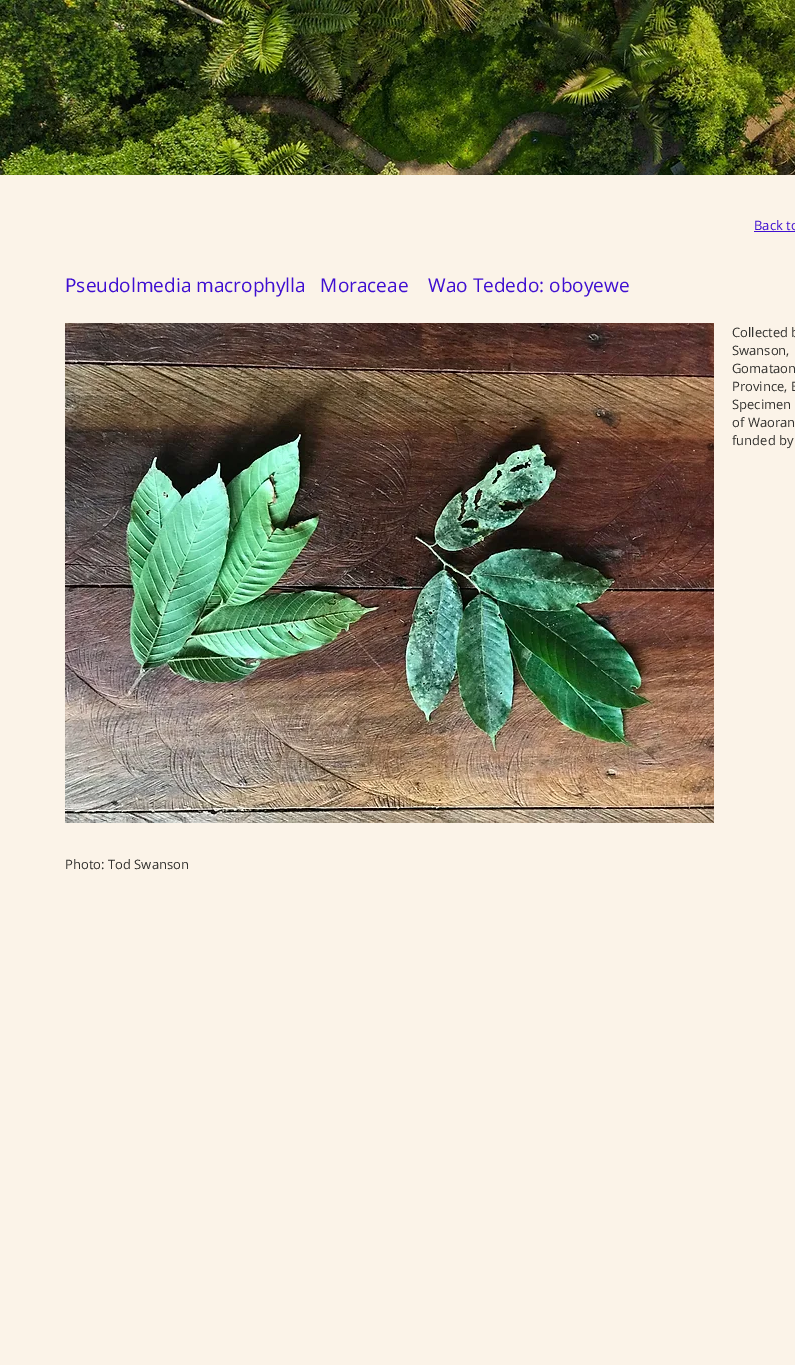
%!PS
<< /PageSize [795 1365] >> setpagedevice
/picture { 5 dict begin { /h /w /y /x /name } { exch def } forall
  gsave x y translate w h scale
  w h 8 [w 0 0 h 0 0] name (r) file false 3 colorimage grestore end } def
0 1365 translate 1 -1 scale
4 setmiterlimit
0.984 0.953 0.91 setrgbcolor
0 0 795 1365 rectfill
(img1.rgb) 0 0 795 175 picture
/OpenSans-Regular [13 0 0 -13 0 0] selectfont
0.247 0.059 0.82 setrgbcolor
754 230 moveto (Back to) show
754 231 41 1 rectfill
/OpenSans-Regular [19 0 0 -19 0 0] selectfont
65 292 moveto (Pseudolmedia macrophylla   Moraceae    Wao Tededo: oboyewe) show
(img2.rgb) 65 323 649 500 picture
/OpenSans-Regular [13 0 0 -13 0 0] selectfont
0.196 0.192 0.18 setrgbcolor
732 337 moveto (Collected b) show
732 355 moveto (Swanson,) show
732 373 moveto (Gomataon) show
732 391 moveto (Province, E) show
732 409 moveto (Specimen) show
732 427 moveto (of Waoran) show
732 445 moveto (funded by) show
65 869 moveto (Photo: Tod Swanson) show
showpage
